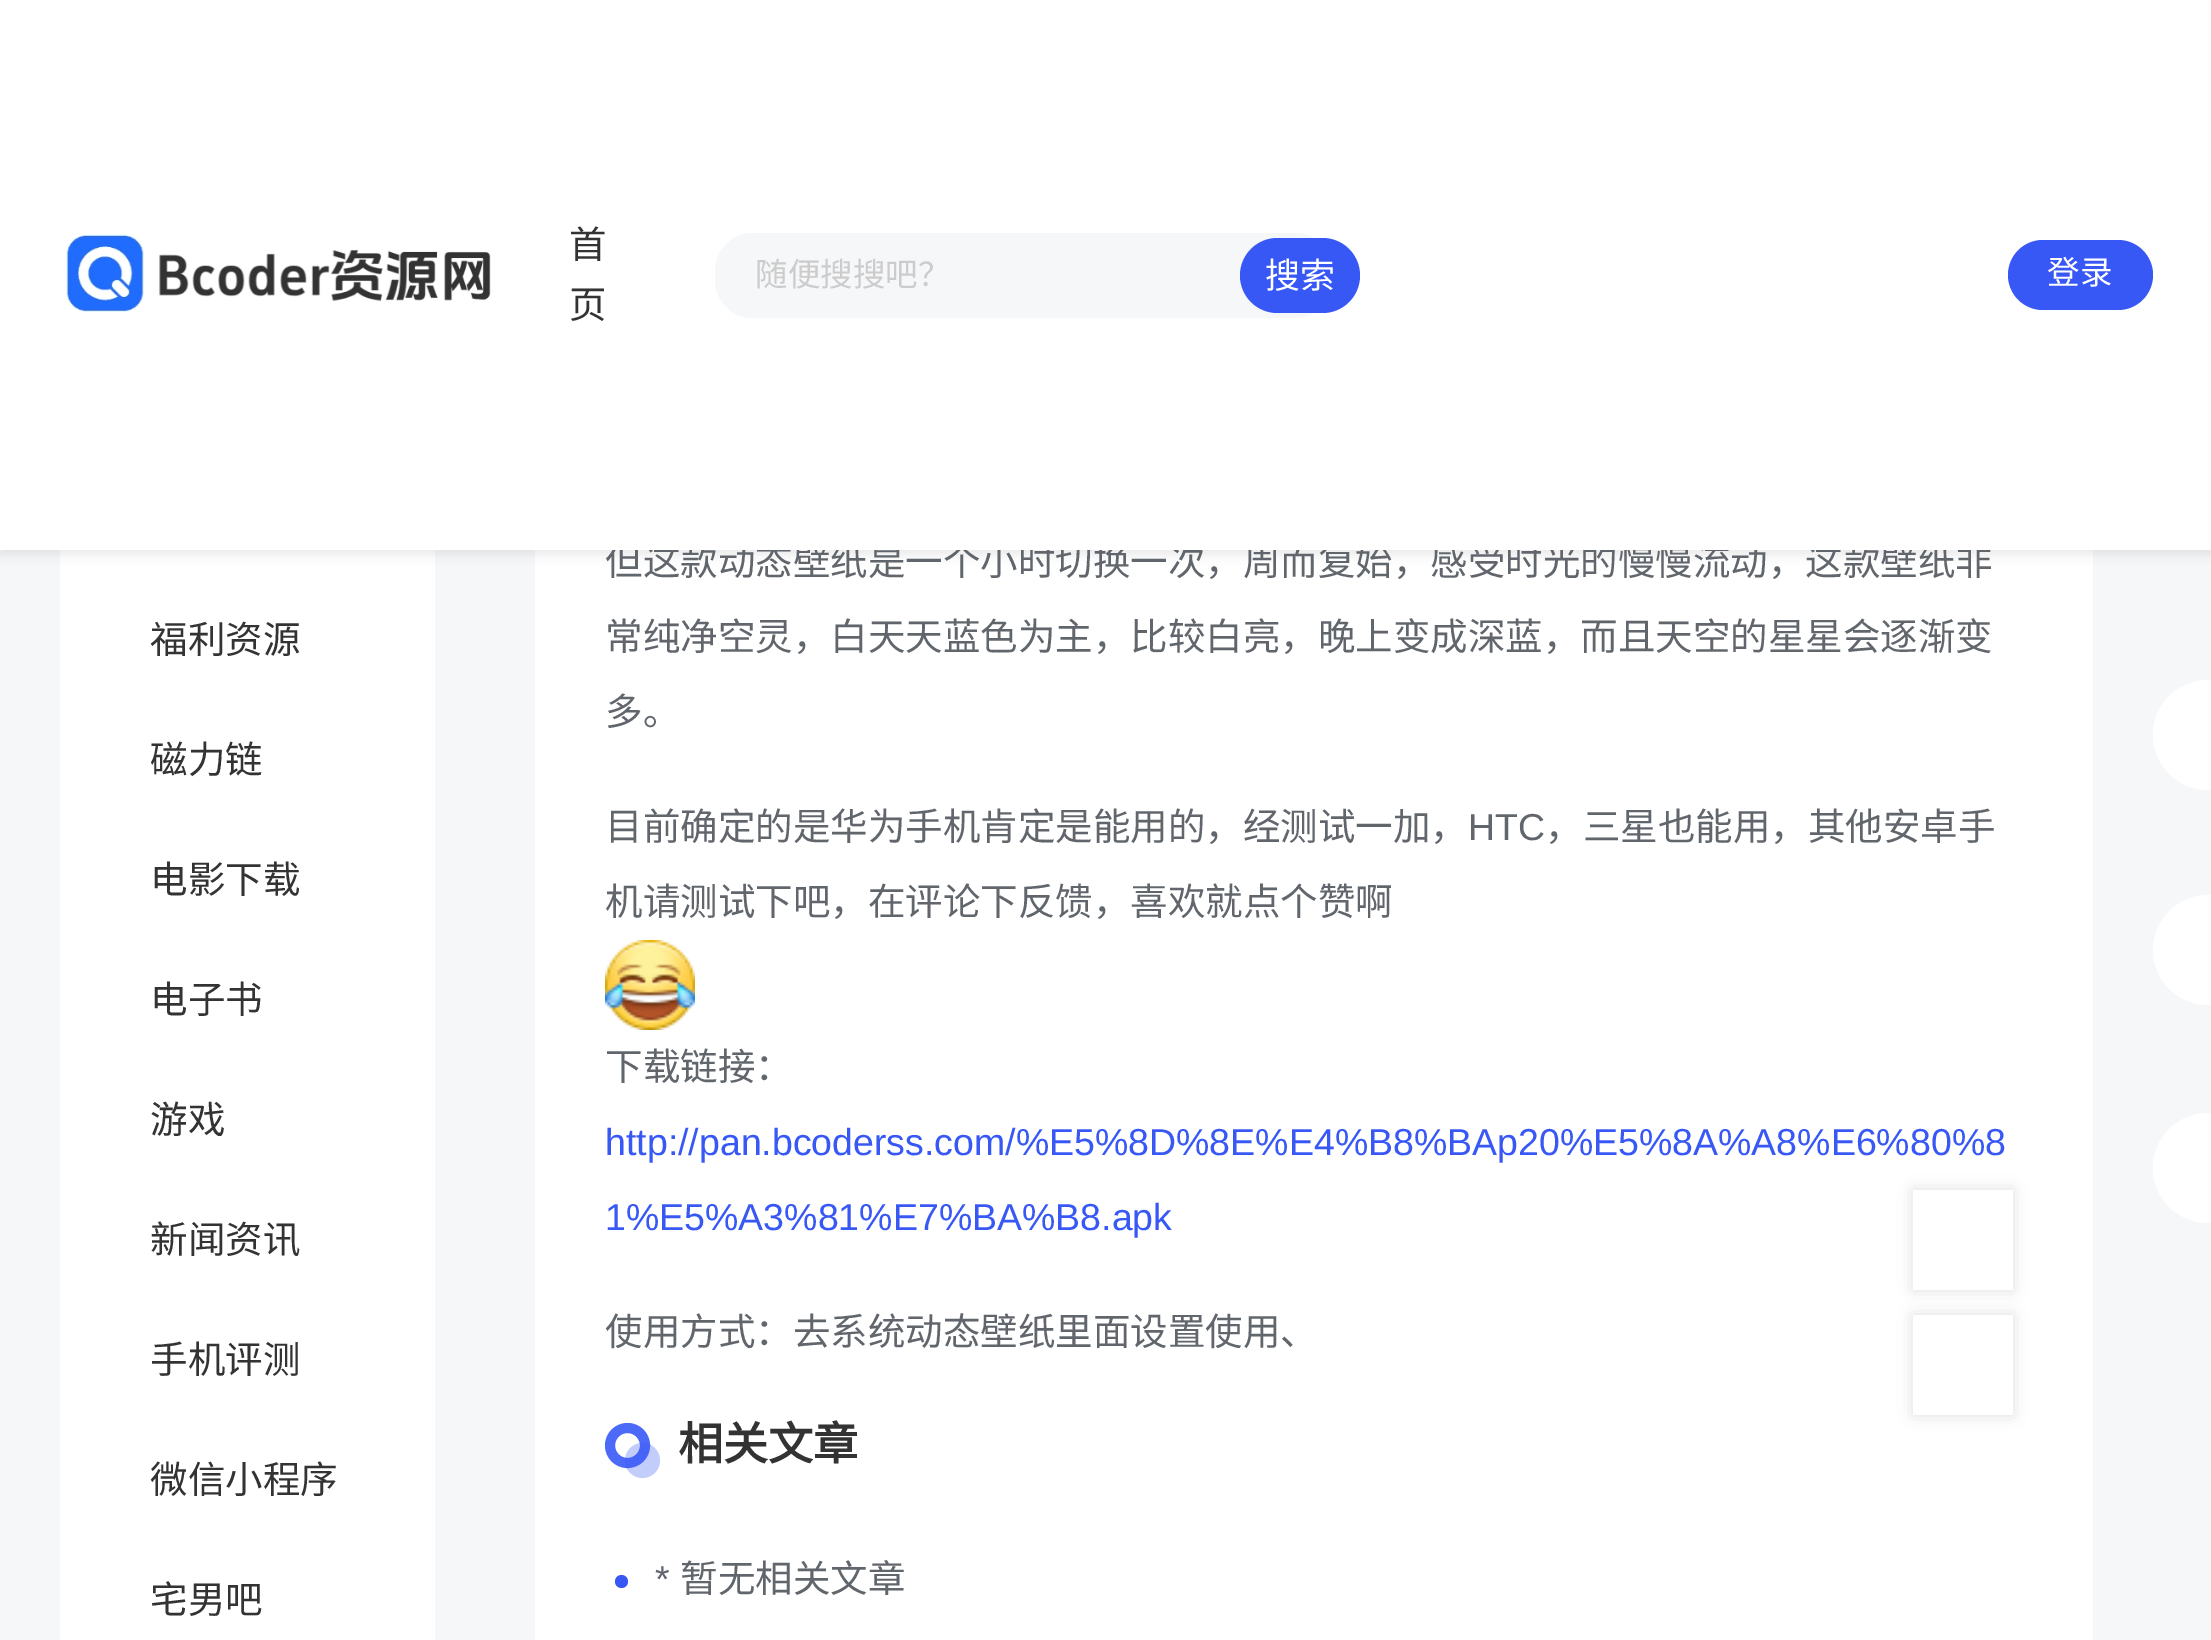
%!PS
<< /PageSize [2211 1640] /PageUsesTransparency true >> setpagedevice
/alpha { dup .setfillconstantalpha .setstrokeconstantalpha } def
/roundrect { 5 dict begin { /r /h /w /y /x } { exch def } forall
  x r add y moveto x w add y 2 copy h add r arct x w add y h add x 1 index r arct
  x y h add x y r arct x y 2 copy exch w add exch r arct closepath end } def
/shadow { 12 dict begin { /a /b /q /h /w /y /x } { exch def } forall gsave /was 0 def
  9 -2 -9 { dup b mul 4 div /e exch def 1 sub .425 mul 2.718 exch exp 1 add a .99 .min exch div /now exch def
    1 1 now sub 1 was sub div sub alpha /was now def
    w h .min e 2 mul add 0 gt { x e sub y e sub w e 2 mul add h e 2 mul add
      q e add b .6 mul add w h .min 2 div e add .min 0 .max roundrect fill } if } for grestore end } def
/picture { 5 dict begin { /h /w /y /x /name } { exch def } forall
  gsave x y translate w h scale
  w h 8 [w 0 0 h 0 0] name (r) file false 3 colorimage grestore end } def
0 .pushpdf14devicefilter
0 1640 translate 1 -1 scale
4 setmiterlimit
0.965 0.969 0.976 setrgbcolor
0 0 2211 1640 rectfill
1 setgray
60 550 375 1090 rectfill
535 550 1558 1090 rectfill
0 setgray
0 5 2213 550 0 5 0.08 shadow
/NotoSansCJKSC-Regular [37.5 0 0 -37.5 0 0] selectfont
0.38 0.4 0.427 setrgbcolor
605 575 moveto (但这款动态壁纸是一个小时切换一次，周而复始，感受时光的慢慢流动，这款壁纸非) show
1 setgray
0 0 2211 550 rectfill
(img1.rgb) 66 234 425 78 picture
0.2 setgray
569 258 moveto (首) show
569 318 moveto (页) show
0.965 0.969 0.976 setrgbcolor
715 233 618 85 38 roundrect fill
/NotoSansCJKSC-Regular [32.5 0 0 -32.5 0 0] selectfont
0.8 setgray
755 286 moveto (随便搜搜吧？) show
0.22 0.345 0.965 setrgbcolor
1240 238 120 75 37.5 roundrect fill
/NotoSansCJKSC-Regular [35 0 0 -35 0 0] selectfont
1 setgray
1265 288 moveto (搜索) show
0.22 0.345 0.965 setrgbcolor
2008 240 145 70 35 roundrect fill
/NotoSansCJKSC-Regular [32.5 0 0 -32.5 0 0] selectfont
1 setgray
2047 284 moveto (登录) show
/NotoSansCJKSC-Regular [37.5 0 0 -37.5 0 0] selectfont
0.2 setgray
150 653 moveto (福利资源) show
150 773 moveto (磁力链) show
150 893 moveto (电影下载) show
150 1013 moveto (电子书) show
150 1133 moveto (游戏) show
150 1253 moveto (新闻资讯) show
150 1373 moveto (手机评测) show
150 1493 moveto (微信小程序) show
150 1613 moveto (宅男吧) show
0.38 0.4 0.427 setrgbcolor
605 650 moveto (常纯净空灵，白天天蓝色为主，比较白亮，晚上变成深蓝，而且天空的星星会逐渐变) show
605 725 moveto (多。) show
605 840 moveto (目前确定的是华为手机肯定是能用的，经测试一加，) show
/LiberationSans-Regular [37.5 0 0 -37.5 0 0] selectfont
1468 840 moveto (HTC) show
/NotoSansCJKSC-Regular [37.5 0 0 -37.5 0 0] selectfont
1545 840 moveto (，三星也能用，其他安卓手) show
605 915 moveto (机请测试下吧，在评论下反馈，喜欢就点个赞啊) show
(img2.rgb) 605 940 90 90 picture
605 1080 moveto (下载链接：) show
/LiberationSans-Regular [37.5 0 0 -37.5 0 0] selectfont
0.22 0.345 0.965 setrgbcolor
605 1155 moveto (http://pan.bcoderss.com/%E5%8D%8E%E4%B8%BAp20%E5%8A%A8%E6%80%8) show
605 1230 moveto (1%E5%A3%81%E7%BA%B8.apk) show
/NotoSansCJKSC-Regular [37.5 0 0 -37.5 0 0] selectfont
0.38 0.4 0.427 setrgbcolor
605 1345 moveto (使用方式：去系统动态壁纸里面设置使用、) show
0.298 0.412 0.969 setrgbcolor
10 setlinewidth
newpath 627.5 1445.5 17.5 0 360 arc closepath stroke
/NotoSansCJKSC-Bold [45 0 0 -45 0 0] selectfont
0.2 setgray
678 1460 moveto (相关文章) show
0.3 alpha
0.22 0.345 0.965 setrgbcolor
newpath 642.5 1460.5 17.5 0 360 arc closepath fill
/LiberationSans-Regular [37.5 0 0 -37.5 0 0] selectfont
1 alpha
0.38 0.4 0.427 setrgbcolor
655 1592 moveto (*) show
/NotoSansCJKSC-Regular [37.5 0 0 -37.5 0 0] selectfont
680 1592 moveto (暂无相关文章) show
0.22 0.345 0.965 setrgbcolor
newpath 621.5 1581.5 6.5 0 360 arc closepath fill
1 setgray
newpath 2208 735 55 0 360 arc closepath fill
newpath 2208 950 55 0 360 arc closepath fill
newpath 2208 1168 55 0 360 arc closepath fill
0 setgray
1913 1190 100 100 0 7.5 0.12 shadow
1 setgray
1913 1190 100 100 rectfill
0 setgray
1913 1315 100 100 0 7.5 0.12 shadow
1 setgray
1913 1315 100 100 rectfill
.poppdf14devicefilter showpage
